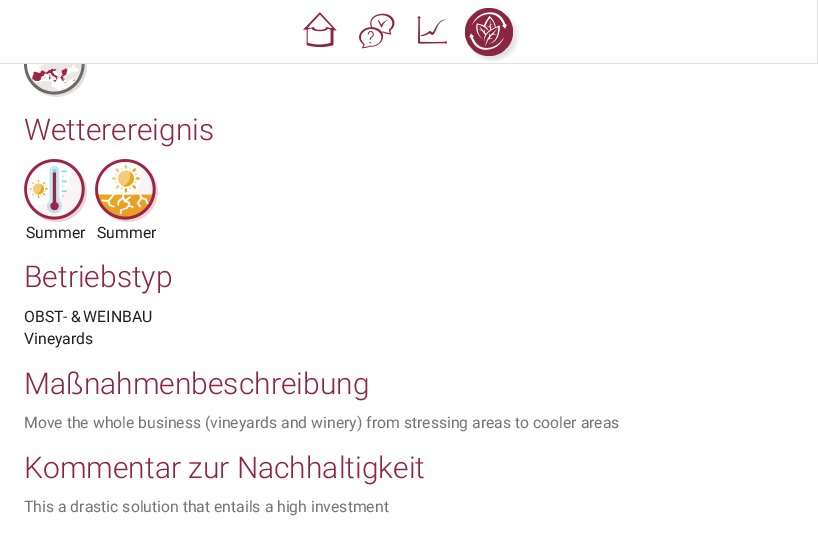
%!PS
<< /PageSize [818 543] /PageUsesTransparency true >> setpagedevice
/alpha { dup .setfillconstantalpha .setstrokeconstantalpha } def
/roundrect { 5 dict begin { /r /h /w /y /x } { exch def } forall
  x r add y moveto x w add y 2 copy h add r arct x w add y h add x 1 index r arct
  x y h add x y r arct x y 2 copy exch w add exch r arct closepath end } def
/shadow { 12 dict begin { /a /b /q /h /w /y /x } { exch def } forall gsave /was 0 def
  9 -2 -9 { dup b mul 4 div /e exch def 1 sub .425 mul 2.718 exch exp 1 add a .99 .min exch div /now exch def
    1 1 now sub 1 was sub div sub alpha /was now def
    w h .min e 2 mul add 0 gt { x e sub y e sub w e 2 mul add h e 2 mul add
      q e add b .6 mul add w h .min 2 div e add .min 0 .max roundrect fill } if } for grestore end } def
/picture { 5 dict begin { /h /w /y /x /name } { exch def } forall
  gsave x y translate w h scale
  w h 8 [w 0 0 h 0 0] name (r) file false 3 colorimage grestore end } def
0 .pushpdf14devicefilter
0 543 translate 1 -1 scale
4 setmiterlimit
1 setgray
0 0 818 543 rectfill
0.878 setgray
newpath 818 0 moveto 818 64 lineto 817 63 lineto 817 0 lineto closepath fill
0.12 alpha
0 setgray
newpath 818 64 moveto 0 64 lineto 0 63 lineto 817 63 lineto closepath fill
1 alpha
(img1.rgb) 303 12 34 36 picture
(img2.rgb) 359 13 36 36 picture
(img3.rgb) 417 16 31 28 picture
0.878 setgray
469 12 48 48 24 2 1 shadow
0.541 0.145 0.259 setrgbcolor
newpath 489 32 24 0 360 arc closepath fill
(img4.rgb) 469 12 38 38 picture
(img5.rgb) 24 64 63 33 picture
/Roboto-Light [30 0 0 -30 0 0] selectfont
24 140 moveto (Wetterereignis) show
(img6.rgb) 24 159 63 63 picture
/Roboto-Regular [15.75 0 0 -15.75 0 0] selectfont
0.129 setgray
26 238 moveto (Summer) show
(img7.rgb) 95 159 63 63 picture
97 238 moveto (Summer) show
/Roboto-Light [30 0 0 -30 0 0] selectfont
0.541 0.145 0.259 setrgbcolor
24 287 moveto (Betriebstyp) show
/Roboto-Regular [15.75 0 0 -15.75 0 0] selectfont
0.129 setgray
24 322 moveto -1 0 32 (OBST- & WEINBAU) widthshow
24 344 moveto (Vineyards) show
/Roboto-Light [30 0 0 -30 0 0] selectfont
0.541 0.145 0.259 setrgbcolor
24 394 moveto (Maßnahmenbeschreibung) show
/Roboto-Regular [15.75 0 0 -15.75 0 0] selectfont
0.459 setgray
24 428 moveto (Move the whole business \(vineyards and winery\) from stressing areas to cooler areas) show
/Roboto-Light [30 0 0 -30 0 0] selectfont
0.541 0.145 0.259 setrgbcolor
24 478 moveto (Kommentar zur Nachhaltigkeit) show
/Roboto-Regular [15.75 0 0 -15.75 0 0] selectfont
0.459 setgray
24 512 moveto (This a drastic solution that entails a high investment) show
.poppdf14devicefilter showpage
